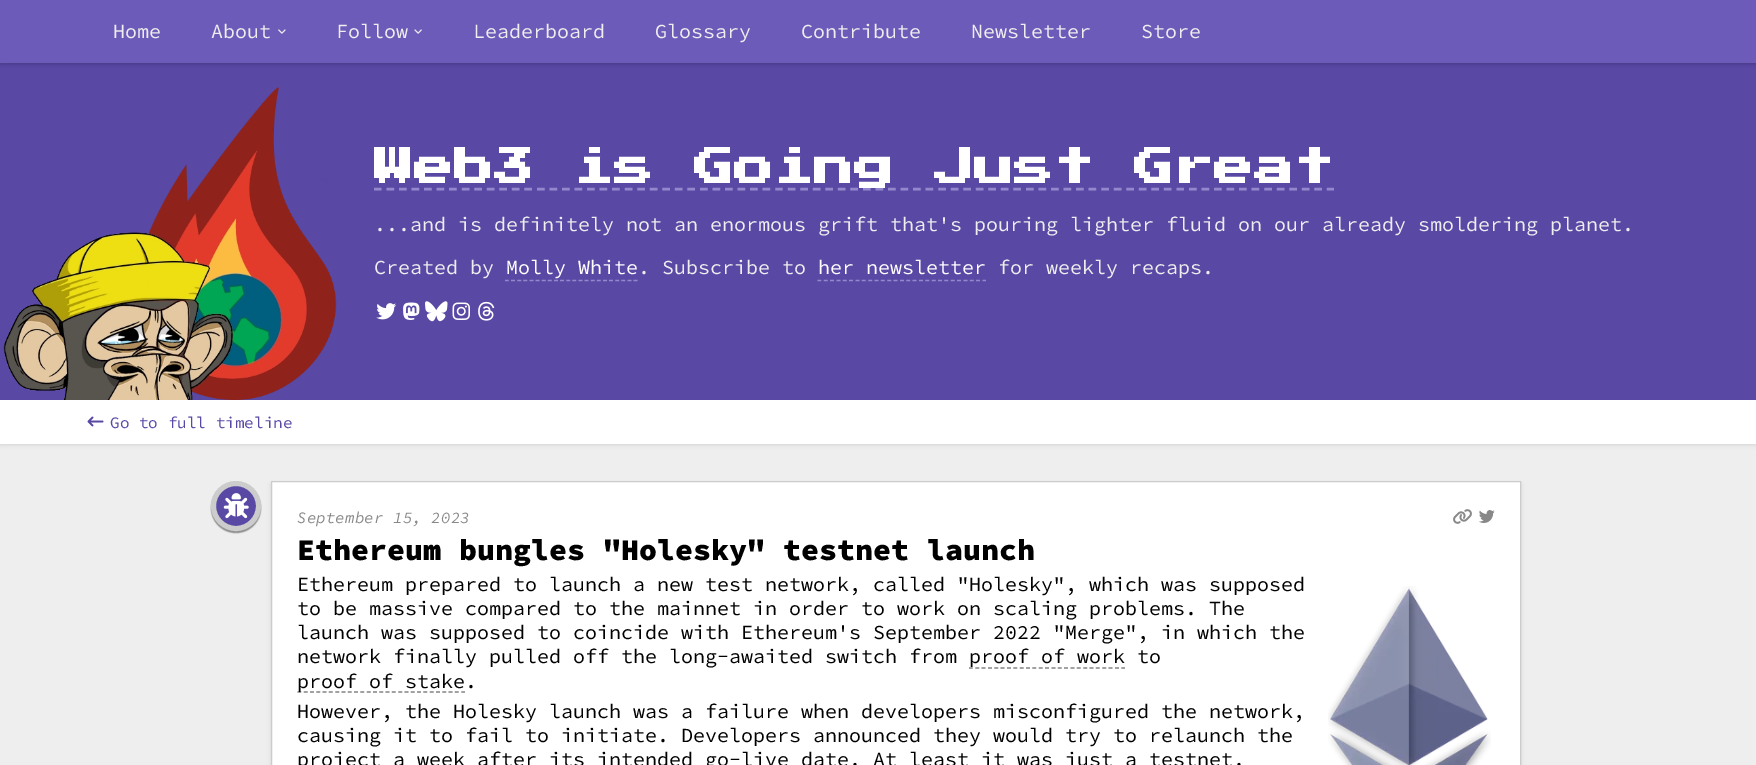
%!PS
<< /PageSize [1756 765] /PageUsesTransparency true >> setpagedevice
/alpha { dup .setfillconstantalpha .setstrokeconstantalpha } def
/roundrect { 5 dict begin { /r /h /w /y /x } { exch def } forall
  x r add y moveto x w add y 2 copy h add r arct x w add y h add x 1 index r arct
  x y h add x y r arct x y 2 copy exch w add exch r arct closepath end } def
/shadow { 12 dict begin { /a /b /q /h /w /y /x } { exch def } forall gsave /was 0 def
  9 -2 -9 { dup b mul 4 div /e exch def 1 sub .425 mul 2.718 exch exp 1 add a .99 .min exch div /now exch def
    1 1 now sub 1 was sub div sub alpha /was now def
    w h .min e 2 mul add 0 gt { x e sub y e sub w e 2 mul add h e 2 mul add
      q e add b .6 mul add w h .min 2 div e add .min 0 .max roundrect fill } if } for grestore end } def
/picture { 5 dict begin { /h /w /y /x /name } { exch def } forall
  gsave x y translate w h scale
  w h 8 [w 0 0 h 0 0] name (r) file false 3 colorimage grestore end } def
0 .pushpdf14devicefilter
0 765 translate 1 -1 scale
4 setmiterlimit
0.933 setgray
0 0 1756 765 rectfill
0 setgray
0 401 1756 44 0 2 0.1 shadow
0.349 0.282 0.643 setrgbcolor
0 63 1756 337 rectfill
0 setgray
0 1 1756 63 0 2 0.2 shadow
0.427 0.357 0.725 setrgbcolor
0 0 1756 63 rectfill
/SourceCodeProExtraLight-Regular [20 0 0 -20 0 0] selectfont
0.933 setgray
113 38 moveto (Home) show
211 38 moveto (About) show
(img1.rgb) 278 29 8 5 picture
336 38 moveto (Follow) show
(img2.rgb) 414 29 8 5 picture
473 38 moveto (Leaderboard) show
655 38 moveto (Glossary) show
801 38 moveto (Contribute) show
971 38 moveto (Newsletter) show
1141 38 moveto (Store) show
(img3.rgb) 3 87 334 313 picture
0.58 0.529 0.796 setrgbcolor
2.5 setlinewidth
[7.5 5.04] 0 setdash
newpath 374 189 moveto 1334 189 lineto stroke
/PressStart2P-Bold [40 0 0 -40 0 0] selectfont
1 setgray
374 188 moveto (Web3 is Going Just Great) show
/SourceCodeProExtraLight-Regular [20 0 0 -20 0 0] selectfont
0.933 setgray
374 231 moveto (...and is definitely not an enormous grift that's pouring lighter fluid on our already smoldering planet.) show
374 274 moveto (Created by) show
1 setgray
506 274 moveto (Molly White) show
0.58 0.529 0.796 setrgbcolor
1.2 setlinewidth
[3.75 2.38] 0 setdash
newpath 505 280.5 moveto 637.5 280.5 lineto stroke
0.933 setgray
638 274 moveto (. Subscribe to) show
1 setgray
818 274 moveto (her newsletter) show
0.58 0.529 0.796 setrgbcolor
[3.75 2.6] 0 setdash
newpath 817.5 280.5 moveto 986 280.5 lineto stroke
0.933 setgray
998 274 moveto (for weekly recaps.) show
(img4.rgb) 376 303 21 17 picture
(img5.rgb) 403 302 17 18 picture
(img6.rgb) 425 301 23 21 picture
(img7.rgb) 452 302 18 18 picture
(img8.rgb) 478 301 17 20 picture
1 setgray
0 400 1756 44 rectfill
(img9.rgb) 87 416 17 11 picture
/SourceCodeProExtraLight-Regular [16 0 0 -16 0 0] selectfont
0.349 0.282 0.643 setrgbcolor
110 428 moveto (Go to full timeline) show
0 setgray
211 483 50 50 25 0.5 0.4 shadow
0.349 0.282 0.643 setrgbcolor
newpath 236 506 22.5 0 360 arc closepath gsave fill grestore
0.8 setgray
5 setlinewidth
[] 0 setdash
stroke
(img10.rgb) 223 493 26 26 picture
0 setgray
271 484 1250 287 0 2 0.1 shadow
1 setgray
newpath 271.5 481.5 moveto 1520.5 481.5 lineto 1520.5 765.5 lineto 271.5 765.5 lineto closepath gsave fill grestore
0.8 setgray
1 setlinewidth
stroke
/SourceCodeProExtraLight-Italic [16 0 0 -16 0 0] selectfont
0.533 setgray
297 523 moveto (September 15, 2023) show
(img11.rgb) 1453 509 19 15 picture
(img12.rgb) 1479 510 16 13 picture
/SourceCodeProExtraLight-Black [30 0 0 -30 0 0] selectfont
0 setgray
297 560 moveto (Ethereum bungles "Holesky" testnet launch) show
/SourceCodeProExtraLight-Regular [20 0 0 -20 0 0] selectfont
297 591 moveto (Ethereum prepared to launch a new test network, called "Holesky", which was supposed) show
297 615 moveto (to be massive compared to the mainnet in order to work on scaling problems. The) show
297 639 moveto (launch was supposed to coincide with Ethereum's September 2022 "Merge", in which the) show
297 663 moveto (network finally pulled off the long-awaited switch from) show
0.502 setgray
1.2 setlinewidth
[3.75 2.6] 0 setdash
newpath 969 668 moveto 1125 668 lineto stroke
0 setgray
969 663 moveto (proof of work to) show
0.502 setgray
[3.75 2.55] 0 setdash
newpath 297.5 692 moveto 465 692 lineto stroke
0 setgray
297 688 moveto (proof of stake.) show
297 718 moveto (However, the Holesky launch was a failure when developers misconfigured the network,) show
297 742 moveto (causing it to fail to initiate. Developers announced they would try to relaunch the) show
297 766 moveto (project a week after its intended go-live date. At least it was just a testnet.) show
(img13.rgb) 1328 586 163 179 picture
.poppdf14devicefilter showpage
